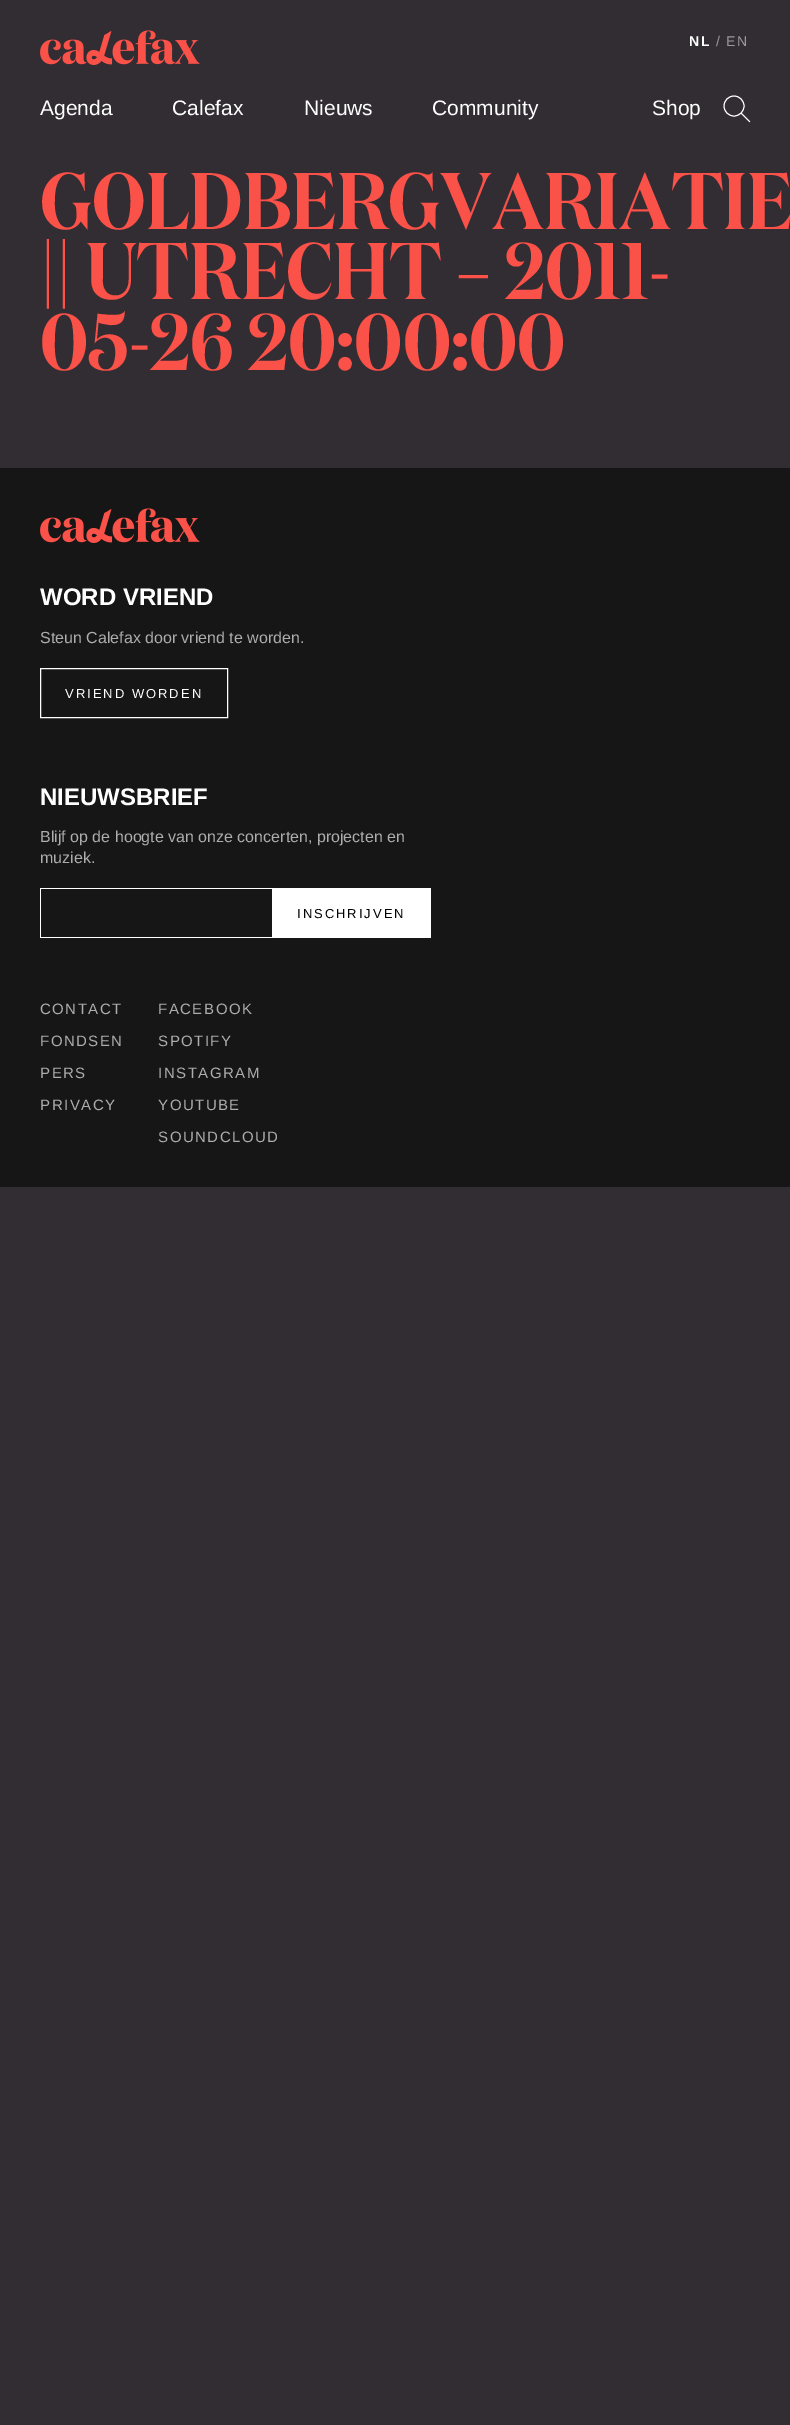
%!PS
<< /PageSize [790 2425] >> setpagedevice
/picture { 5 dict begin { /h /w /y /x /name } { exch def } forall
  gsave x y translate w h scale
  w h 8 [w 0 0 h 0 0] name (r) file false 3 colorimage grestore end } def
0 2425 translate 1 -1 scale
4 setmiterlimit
0.196 0.173 0.2 setrgbcolor
0 0 790 2425 rectfill
(img1.rgb) 40 30 160 35 picture
/LiberationSans-Bold [14 0 0 -14 0 0] selectfont
1 setgray
689 46 moveto 2 0 (NL) ashow
/LiberationSans-Regular [14 0 0 -14 0 0] selectfont
0.608 setgray
716 46 moveto 2 0 (/) ashow
726 46 moveto 2 0 (EN) ashow
/LiberationSans-Regular [21 0 0 -21 0 0] selectfont
1 setgray
40 115 moveto (Agenda) show
172 115 moveto (Calefax) show
304 115 moveto (Nieuws) show
432 115 moveto (Community) show
652 115 moveto (Shop) show
newpath 734 106 10 0 360 arc closepath stroke
2 setlinecap
newpath 741.5 113.5 moveto 749.5 121.5 lineto stroke
/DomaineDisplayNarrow-SemiBold [80 0 0 -80 0 0] selectfont
0.98 0.318 0.286 setrgbcolor
40 229 moveto (GOLDBERGVARIATIE) show
40 299 moveto (|| UTRECHT – 2011-) show
40 370 moveto (05-26 20:00:00) show
0.086 setgray
0 468 790 719 rectfill
/LiberationSans-Bold [24 0 0 -24 0 0] selectfont
1 setgray
40 605 moveto (WORD VRIEND) show
/LiberationSans-Regular [16 0 0 -16 0 0] selectfont
0.678 setgray
40 643 moveto (Steun Calefax door vriend te worden.) show
1 setgray
0 setlinecap
40.5 668.5 187 49 rectstroke
/LiberationSans-Regular [13 0 0 -13 0 0] selectfont
65 698 moveto 2 0 (VRIEND WORDEN) ashow
/LiberationSans-Bold [24 0 0 -24 0 0] selectfont
40 805 moveto (NIEUWSBRIEF) show
/LiberationSans-Regular [16 0 0 -16 0 0] selectfont
0.678 setgray
40 842 moveto (Blijf op de hoogte van onze concerten, projecten en) show
40 863 moveto (muziek.) show
1 setgray
40 888 232 1 rectfill
40 937 232 1 rectfill
40 888 1 50 rectfill
272 888 159 50 rectfill
/LiberationSans-Regular [13 0 0 -13 0 0] selectfont
0 setgray
297 918 moveto 2 0 (INSCHRIJVEN) ashow
(img2.rgb) 40 508 160 35 picture
/LiberationSans-Regular [15 0 0 -15 0 0] selectfont
0.678 setgray
40 1014 moveto 1.5 0 (CONTACT) ashow
40 1046 moveto 1.5 0 (FONDSEN) ashow
40 1078 moveto 1.5 0 (PERS) ashow
40 1110 moveto 1.5 0 (PRIVACY) ashow
158 1014 moveto 1.5 0 (FACEBOOK) ashow
158 1046 moveto 1.5 0 (SPOTIFY) ashow
158 1078 moveto 1.5 0 (INSTAGRAM) ashow
158 1110 moveto 1.5 0 (YOUTUBE) ashow
158 1142 moveto 1.5 0 (SOUNDCLOUD) ashow
showpage
